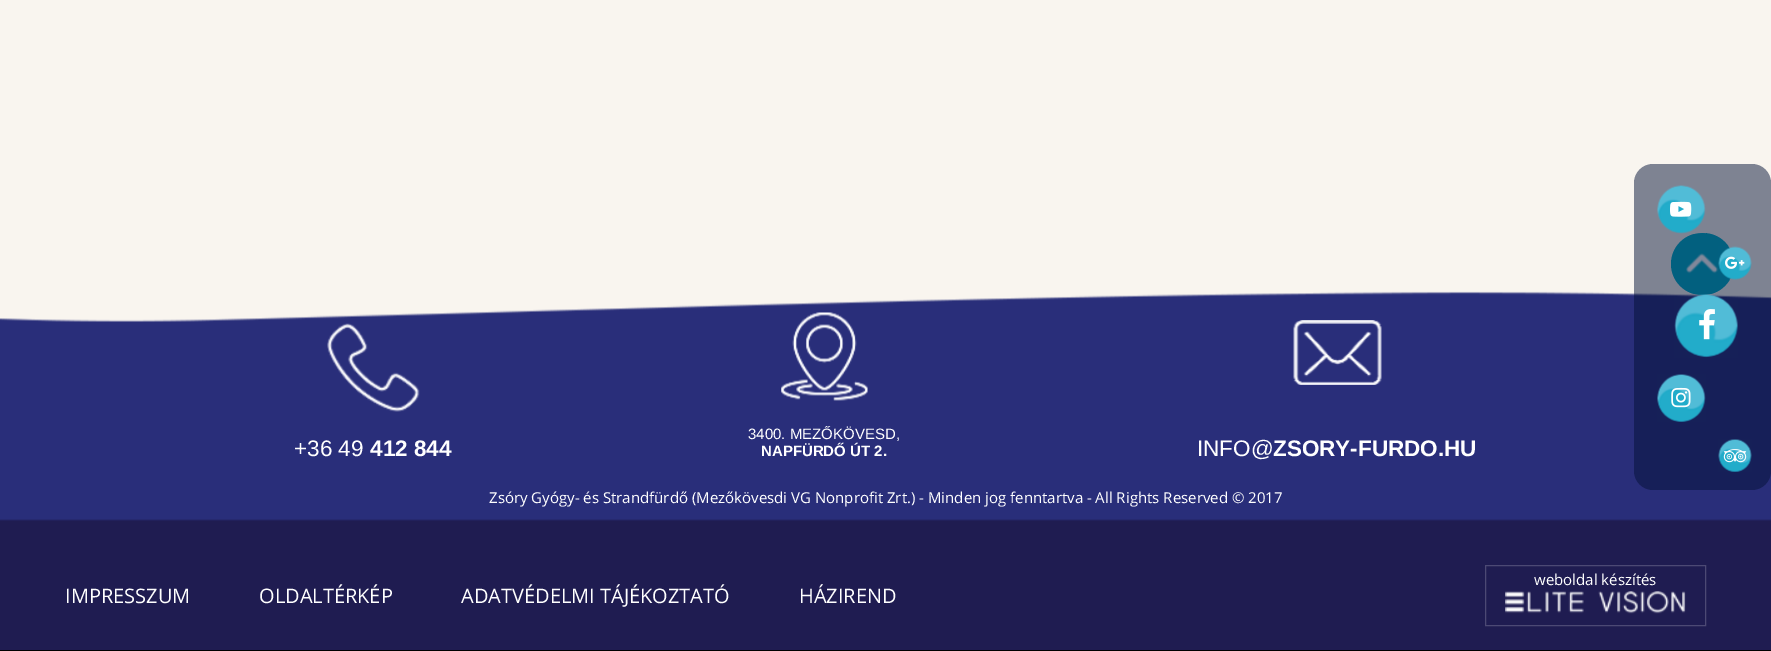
%!PS
<< /PageSize [1771 651] /PageUsesTransparency true >> setpagedevice
/alpha { dup .setfillconstantalpha .setstrokeconstantalpha } def
/roundrect { 5 dict begin { /r /h /w /y /x } { exch def } forall
  x r add y moveto x w add y 2 copy h add r arct x w add y h add x 1 index r arct
  x y h add x y r arct x y 2 copy exch w add exch r arct closepath end } def
/picture { 5 dict begin { /h /w /y /x /name } { exch def } forall
  gsave x y translate w h scale
  w h 8 [w 0 0 h 0 0] name (r) file false 3 colorimage grestore end } def
0 .pushpdf14devicefilter
0 651 translate 1 -1 scale
4 setmiterlimit
0 setgray
0 0 1771 651 rectfill
0.976 0.961 0.937 setrgbcolor
0 0 1771 322 rectfill
(img11.rgb) 0 291 1771 249 picture
0 0.686 0.788 setrgbcolor
1671 233 63 62 31 roundrect fill
(img12.rgb) 1686 253 33 21 picture
0.5 alpha
0.016 0.067 0.212 setrgbcolor
1634 164 137 326 19 roundrect fill
1 alpha
(img1.rgb) 1657 185 49 49 picture
(img2.rgb) 1670 201 22 16 picture
(img3.rgb) 1718 246 34 34 picture
(img4.rgb) 1725 256 20 13 picture
(img5.rgb) 1674 294 64 64 picture
(img6.rgb) 1699 309 16 31 picture
(img7.rgb) 1657 374 49 48 picture
(img8.rgb) 1671 387 20 21 picture
(img9.rgb) 1718 439 34 33 picture
(img10.rgb) 1723 449 24 14 picture
(img13.rgb) 327 323 93 89 picture
/LiberationSans-Regular [22.5 0 0 -22.5 0 0] selectfont
1 setgray
294 456 moveto (+36 49) show
/LiberationSans-Bold [22.5 0 0 -22.5 0 0] selectfont
370 456 moveto (412 844) show
(img14.rgb) 781 312 87 89 picture
/LiberationSans-Regular [15 0 0 -15 0 0] selectfont
748 439 moveto (3400. MEZŐKÖVESD,) show
/LiberationSans-Bold [15 0 0 -15 0 0] selectfont
761 456 moveto (NAPFÜRDŐ ÚT 2.) show
(img15.rgb) 1293 320 89 65 picture
/LiberationSans-Regular [22.5 0 0 -22.5 0 0] selectfont
1197 456 moveto (INFO@) show
/LiberationSans-Bold [22.5 0 0 -22.5 0 0] selectfont
1273 456 moveto (ZSORY-FURDO.HU) show
/OpenSans-Regular [15 0 0 -15 0 0] selectfont
489 503 moveto (Zsóry Gyógy- és Strandfürdő \(Mezőkövesdi VG Nonprofit Zrt.\) - Minden jog fenntartva - All Rights Reserved © 2017) show
0.122 0.11 0.318 setrgbcolor
0 540 1771 110 rectfill
0.298 0.286 0.455 setrgbcolor
1485.5 565.5 220 60 rectstroke
1 setgray
1534 585 moveto (weboldal készítés) show
(img16.rgb) 1505 591 181 23 picture
/OpenSans-Regular [20 0 0 -20 0 0] selectfont
65 603 moveto (IMPRESSZUM) show
259 603 moveto (OLDALTÉRKÉP) show
461 603 moveto (ADATVÉDELMI TÁJÉKOZTATÓ) show
799 603 moveto (HÁZIREND) show
.poppdf14devicefilter showpage
